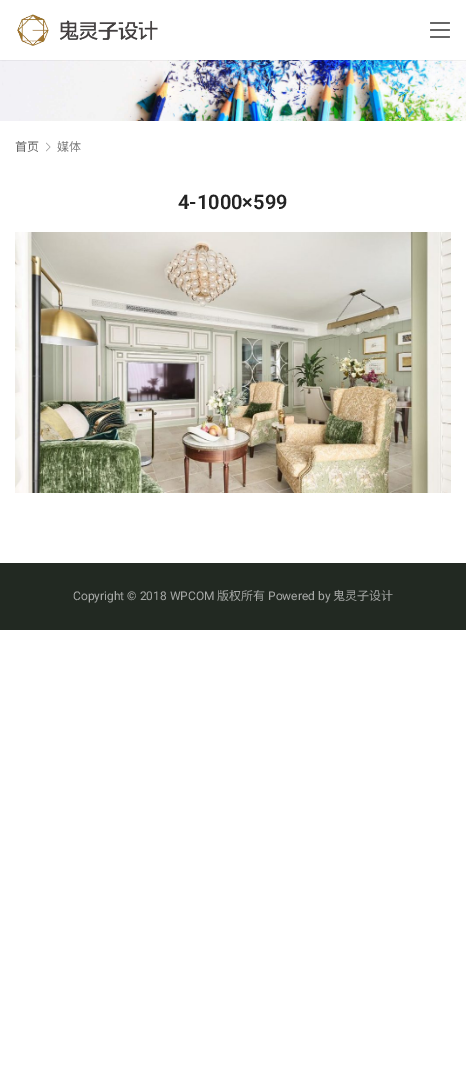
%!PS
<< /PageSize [466 1073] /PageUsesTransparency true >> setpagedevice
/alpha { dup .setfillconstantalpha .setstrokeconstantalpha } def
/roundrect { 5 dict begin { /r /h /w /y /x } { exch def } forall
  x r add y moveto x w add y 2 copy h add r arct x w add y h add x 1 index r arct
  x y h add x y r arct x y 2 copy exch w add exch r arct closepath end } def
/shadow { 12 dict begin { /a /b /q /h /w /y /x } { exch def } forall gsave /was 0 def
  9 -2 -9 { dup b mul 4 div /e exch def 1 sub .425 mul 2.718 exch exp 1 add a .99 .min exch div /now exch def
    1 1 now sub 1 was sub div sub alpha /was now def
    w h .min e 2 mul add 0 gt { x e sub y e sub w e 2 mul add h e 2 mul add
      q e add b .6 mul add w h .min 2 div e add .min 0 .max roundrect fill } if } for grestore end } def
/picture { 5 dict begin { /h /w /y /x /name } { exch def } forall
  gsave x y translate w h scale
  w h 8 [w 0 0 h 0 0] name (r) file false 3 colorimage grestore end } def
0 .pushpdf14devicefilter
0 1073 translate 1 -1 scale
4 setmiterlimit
1 setgray
0 0 466 1073 rectfill
(img2.rgb) 0 60 466 61 picture
gsave
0 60 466 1 rectclip
0 setgray
0 1 466 60 0 0.5 0.05 shadow
grestore
(img1.rgb) 17 14 141 32 picture
0.4 setgray
430 22 20 2 1 roundrect fill
430 29 20 2 1 roundrect fill
430 36 20 2 1 roundrect fill
/NotoSansCJKSC-Regular [12 0 0 -12 0 0] selectfont
15 151 moveto (首页) show
(img3.rgb) 46 142 5 10 picture
0.463 setgray
57 151 moveto (媒体) show
/Roboto-SemiBold [20 0 0 -20 0 0] selectfont
0.137 setgray
178 209 moveto (4-1000×599) show
(img4.rgb) 15 232 436 261 picture
0.133 0.161 0.133 setrgbcolor
0 563 466 67 rectfill
/Roboto-Regular [12 0 0 -12 0 0] selectfont
0.655 0.663 0.655 setrgbcolor
73 600 moveto (Copyright © 2018 WPCOM) show
/NotoSansCJKSC-Regular [12 0 0 -12 0 0] selectfont
217 600 moveto (版权所有) show
/Roboto-Regular [12 0 0 -12 0 0] selectfont
268 600 moveto (Powered by) show
/NotoSansCJKSC-Regular [12 0 0 -12 0 0] selectfont
333 600 moveto (鬼灵子设计) show
.poppdf14devicefilter showpage
